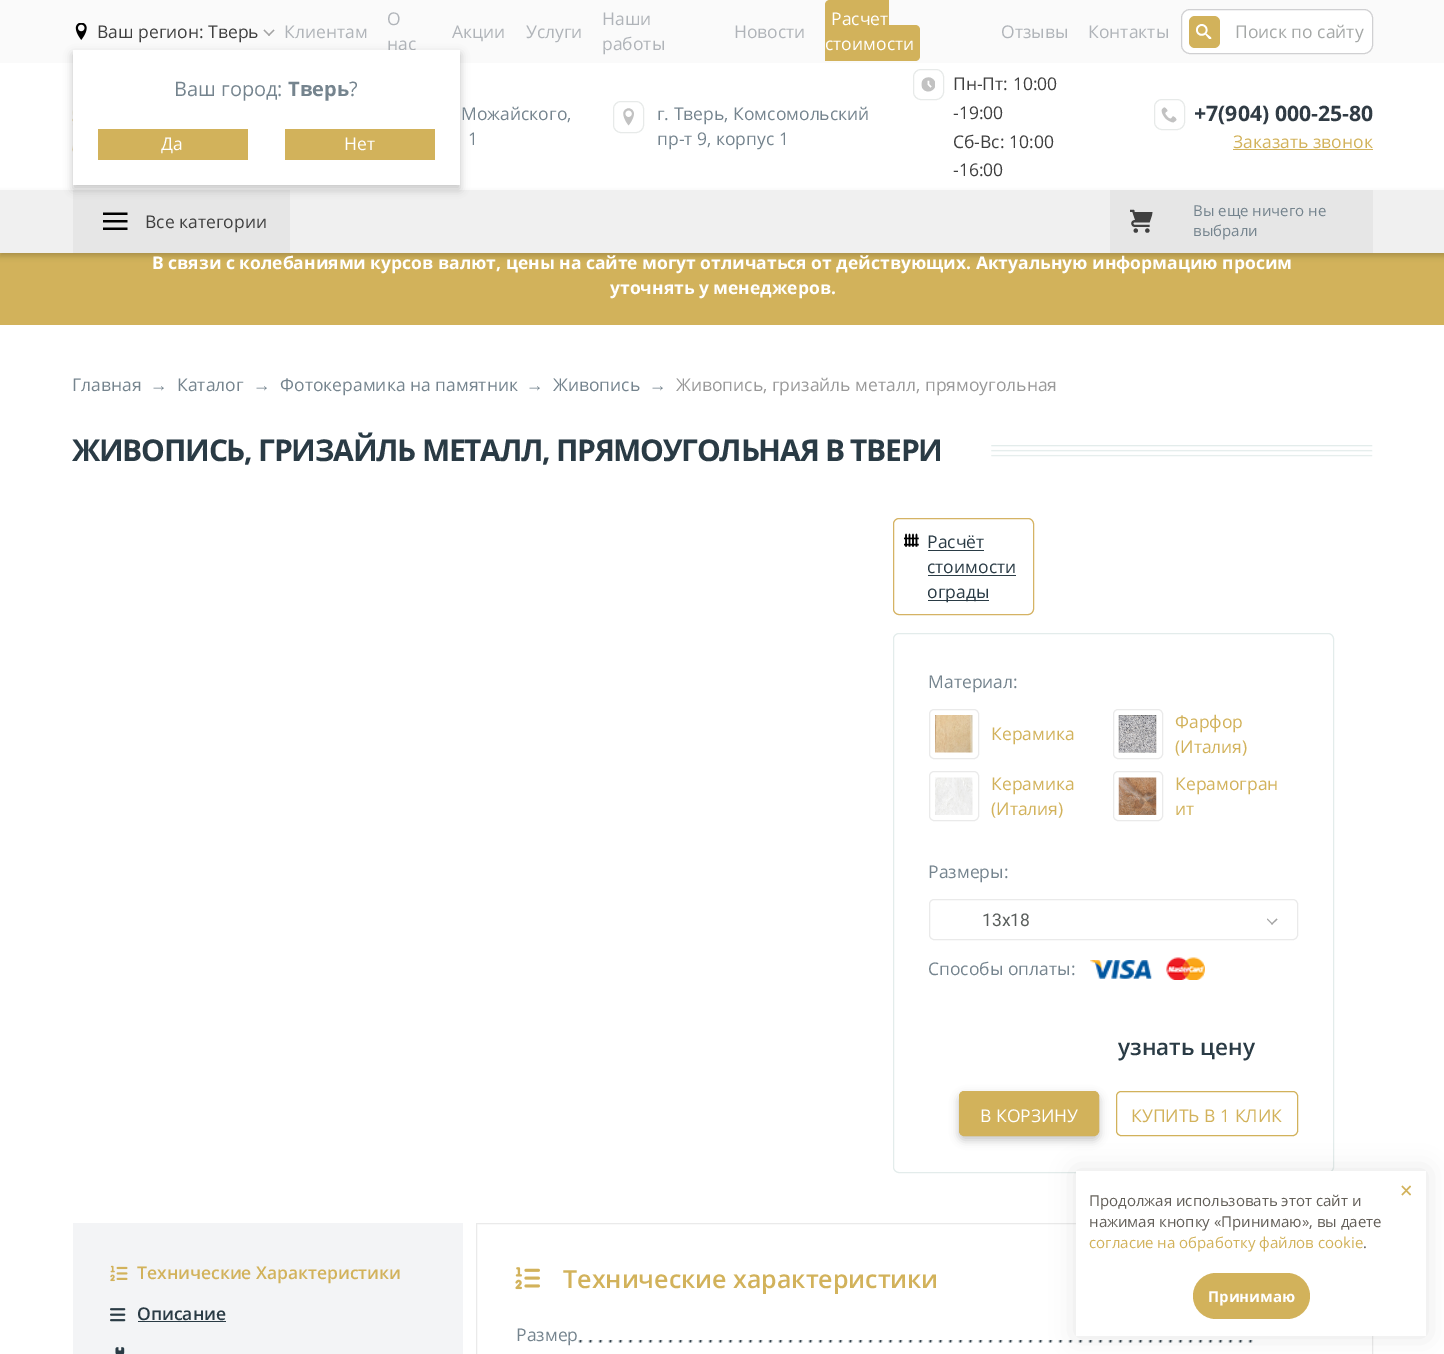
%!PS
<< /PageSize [1444 1354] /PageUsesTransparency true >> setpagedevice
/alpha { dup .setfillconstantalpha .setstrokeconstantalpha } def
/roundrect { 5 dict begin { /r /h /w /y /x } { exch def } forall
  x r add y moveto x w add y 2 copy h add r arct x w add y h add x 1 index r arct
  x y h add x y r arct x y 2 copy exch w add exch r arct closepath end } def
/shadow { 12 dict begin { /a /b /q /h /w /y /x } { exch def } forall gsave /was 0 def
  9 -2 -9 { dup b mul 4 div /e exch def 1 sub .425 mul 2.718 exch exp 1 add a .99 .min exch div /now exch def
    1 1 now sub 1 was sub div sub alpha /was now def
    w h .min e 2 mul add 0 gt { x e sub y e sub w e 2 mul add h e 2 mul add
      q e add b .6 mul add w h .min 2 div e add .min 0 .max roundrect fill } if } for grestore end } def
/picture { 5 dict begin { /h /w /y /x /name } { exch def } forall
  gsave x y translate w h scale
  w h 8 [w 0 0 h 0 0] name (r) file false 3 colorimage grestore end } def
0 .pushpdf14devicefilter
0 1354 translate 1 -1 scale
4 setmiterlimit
1 setgray
0 0 1444 1354 rectfill
0.98 setgray
0 0 1444 63 rectfill
(img1.rgb) 75 23 12 17 picture
/OpenSans-Regular [17.5 0 0 -17.5 0 0] selectfont
0.251 setgray
97 38 moveto (Ваш регион: Тверь) show
0.639 setgray
newpath 274.5 30.5 moveto 269 36 lineto 268 35 lineto 273.5 29.5 lineto closepath fill
newpath 270 35 moveto 269 36 lineto 263.5 30.5 lineto 264.5 29.5 lineto closepath fill
0.69 0.706 0.725 setrgbcolor
284 38 moveto (Клиентам) show
387 25 moveto (О) show
387 50 moveto (нас) show
452 38 moveto (Акции) show
526 38 moveto (Услуги) show
602 25 moveto (Наши) show
602 50 moveto (работы) show
734 38 moveto (Новости) show
0.824 0.698 0.357 setrgbcolor
newpath 830 0 moveto 889 0 lineto 889 36 lineto 830 36 lineto 827 36 825 34 825 31 curveto 825 5 lineto 825 2 827 0 830 0 curveto closepath fill
newpath 825 25 moveto 915 25 lineto 918 25 920 27 920 30 curveto 920 56 lineto 920 59 918 61 915 61 curveto 825 61 lineto closepath fill
1 setgray
831 25 moveto (Расчет) show
825 50 moveto (стоимости) show
0.69 0.706 0.725 setrgbcolor
1001 38 moveto (Отзывы) show
1088 38 moveto (Контакты) show
1 setgray
1181.5 9.5 191 44 8.5 roundrect gsave fill grestore
0.816 0.816 0.824 setrgbcolor
stroke
0.824 0.698 0.357 setrgbcolor
1189 16 31 32 6 roundrect fill
(img2.rgb) 1196 24 16 15 picture
0.647 0.659 0.655 setrgbcolor
1235 38 moveto (Поиск по сайту) show
(img3.rgb) 72 110 1 42 picture
0.824 0.698 0.357 setrgbcolor
0 253 1444 72 rectfill
0 setgray
0 194 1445 62 0 3 0.2 shadow
0.941 setgray
0 190 1444 63 rectfill
0.902 setgray
73 190 217 63 rectfill
0 setgray
73 54 387 135 0 4.5 0.23 shadow
1 setgray
73 50 387 135 rectfill
/OpenSans-Regular [20 0 0 -20 0 0] selectfont
0.459 0.518 0.557 setrgbcolor
174 96 moveto (Ваш город:) show
/OpenSans-Bold [20 0 0 -20 0 0] selectfont
288 96 moveto (Тверь) show
/OpenSans-Regular [20 0 0 -20 0 0] selectfont
349 96 moveto (?) show
0.824 0.698 0.357 setrgbcolor
98 129 150 31 rectfill
/OpenSans-Regular [17.5 0 0 -17.5 0 0] selectfont
1 setgray
161 150 moveto (Да) show
0.824 0.698 0.357 setrgbcolor
285 129 150 31 rectfill
1 setgray
344 150 moveto (Нет) show
0.459 0.518 0.557 setrgbcolor
461 120 moveto (Можайского,) show
468 145 moveto (1) show
0.906 0.918 0.914 setrgbcolor
613.5 101.5 30 31 7.5 roundrect stroke
(img4.rgb) 623 108 11 18 picture
0.459 0.518 0.557 setrgbcolor
657 120 moveto (г. Тверь, Комсомольский) show
657 145 moveto (пр-т 9, корпус 1) show
0.906 0.918 0.914 setrgbcolor
913.5 69.5 30 30 7.5 roundrect stroke
(img5.rgb) 921 77 14 15 picture
0.251 setgray
953 90 moveto (Пн-Пт: 10:00) show
953 119 moveto (-19:00) show
953 148 moveto (Сб-Вс: 10:00) show
953 176 moveto (-16:00) show
0.906 0.918 0.914 setrgbcolor
1154.5 99.5 30 30 7.5 roundrect stroke
(img6.rgb) 1161 107 16 16 picture
/OpenSans-Bold [21.25 0 0 -21.25 0 0] selectfont
0.188 0.231 0.267 setrgbcolor
1194 121 moveto (+7\(904\) 000-25-80) show
/OpenSans-Regular [17.5 0 0 -17.5 0 0] selectfont
0.824 0.698 0.357 setrgbcolor
1233 148 moveto (Заказать звонок) show
1233 149 140 1 rectfill
(img7.rgb) 103 212 25 18 picture
0.251 setgray
145 228 moveto (Все категории) show
0.902 setgray
1110 190 263 63 rectfill
(img8.rgb) 1130 209 23 24 picture
/OpenSans-Regular [15 0 0 -15 0 0] selectfont
0.459 0.518 0.557 setrgbcolor
1193 216 moveto (Вы еще ничего не) show
1193 236 moveto (выбрали) show
/OpenSans-Bold [17.5 0 0 -17.5 0 0] selectfont
1 setgray
152 269 moveto (В связи с колебаниями курсов валют, цены на сайте могут отличаться от действующих. Актуальную информацию просим) show
610 294 moveto (уточнять у менеджеров.) show
/OpenSans-Regular [17.5 0 0 -17.5 0 0] selectfont
0.459 0.518 0.557 setrgbcolor
72 391 moveto (Главная) show
/LiberationSerif-Regular [17.5 0 0 -17.5 0 0] selectfont
150 391 moveto (→) show
/OpenSans-Regular [17.5 0 0 -17.5 0 0] selectfont
177 391 moveto (Каталог) show
/LiberationSerif-Regular [17.5 0 0 -17.5 0 0] selectfont
253 391 moveto (→) show
/OpenSans-Regular [17.5 0 0 -17.5 0 0] selectfont
280 391 moveto (Фотокерамика на памятник) show
/LiberationSerif-Regular [17.5 0 0 -17.5 0 0] selectfont
526 391 moveto (→) show
/OpenSans-Regular [17.5 0 0 -17.5 0 0] selectfont
553 391 moveto (Живопись) show
/LiberationSerif-Regular [17.5 0 0 -17.5 0 0] selectfont
649 391 moveto (→) show
/OpenSans-Regular [17.5 0 0 -17.5 0 0] selectfont
0.6 setgray
676 391 moveto (Живопись, гризайль металл, прямоугольная) show
/OpenSans-Bold [30 0 0 -30 0 0] selectfont
0.165 0.231 0.271 setrgbcolor
72 461 moveto -1.25 0 (ЖИВОПИСЬ, ГРИЗАЙЛЬ МЕТАЛЛ, ПРЯМОУГОЛЬНАЯ В ТВЕРИ) ashow
(img9.rgb) 991 445 382 12 picture
0.835 0.702 0.392 setrgbcolor
893.5 518.5 140 96 5.5 roundrect stroke
(img10.rgb) 904 533 15 14 picture
/OpenSans-Regular [17.5 0 0 -17.5 0 0] selectfont
0.165 0.231 0.271 setrgbcolor
927 548 moveto (Расчёт) show
928 550 56 1 rectfill
927 573 moveto (стоимости) show
928 575 88 1 rectfill
928 600 61 1 rectfill
927 598 moveto (ограды) show
0.89 0.925 0.922 setrgbcolor
893.5 633.5 440 539 5.5 roundrect stroke
0.459 0.518 0.557 setrgbcolor
928 688 moveto (Материал:) show
0.918 setgray
929.5 709.5 49 49 4.5 roundrect stroke
(img11.rgb) 935 715 38 38 picture
0.824 0.698 0.357 setrgbcolor
991 740 moveto (Керамика) show
0.918 setgray
1113.5 709.5 49 49 4.5 roundrect stroke
(img12.rgb) 1118 715 39 38 picture
0.824 0.698 0.357 setrgbcolor
1175 728 moveto (Фарфор) show
1175 753 moveto (\(Италия\)) show
0.918 setgray
929.5 771.5 49 49 4.5 roundrect stroke
(img13.rgb) 935 777 38 38 picture
0.824 0.698 0.357 setrgbcolor
991 790 moveto (Керамика) show
991 815 moveto (\(Италия\)) show
0.918 setgray
1113.5 771.5 49 49 4.5 roundrect stroke
(img14.rgb) 1118 777 39 38 picture
0.824 0.698 0.357 setrgbcolor
1175 790 moveto (Керамогран) show
1175 815 moveto (ит) show
0.459 0.518 0.557 setrgbcolor
928 878 moveto (Размеры:) show
0.918 setgray
929.5 899.5 368 40 4.5 roundrect stroke
/Roboto-Regular [17.5 0 0 -17.5 0 0] selectfont
0.349 0.365 0.357 setrgbcolor
982 926 moveto (13х18) show
0.639 setgray
newpath 1277.5 919.5 moveto 1272 924.5 lineto 1271 924 lineto 1276.5 918.5 lineto closepath fill
newpath 1273 924 moveto 1272 924.5 lineto 1267 919.5 lineto 1267.5 918.5 lineto closepath fill
/OpenSans-Regular [17.5 0 0 -17.5 0 0] selectfont
0.459 0.518 0.557 setrgbcolor
928 975 moveto (Способы оплаты:) show
(img15.rgb) 1090 960 62 19 picture
(img16.rgb) 1166 957 39 23 picture
/OpenSans-SemiBold [22.5 0 0 -22.5 0 0] selectfont
0.165 0.231 0.271 setrgbcolor
1118 1055 moveto (узнать цену) show
0 setgray
959 1095 140 45 5 4.5 0.23 shadow
0.824 0.698 0.357 setrgbcolor
959.5 1091.5 139 44 4.5 roundrect gsave fill grestore
stroke
/OpenSans-Regular [17.5 0 0 -17.5 0 0] selectfont
1 setgray
980 1122 moveto (В КОРЗИНУ) show
0.824 0.698 0.357 setrgbcolor
1116.5 1091.5 181 44 4.5 roundrect stroke
1131 1122 moveto (КУПИТЬ В 1 КЛИК) show
0.953 0.957 0.965 setrgbcolor
73 1223 390 131 rectfill
(img17.rgb) 110 1265 18 17 picture
/OpenSans-SemiBold [17.5 0 0 -17.5 0 0] selectfont
0.824 0.698 0.357 setrgbcolor
137 1279 moveto (Технические Характеристики) show
0.918 setgray
476.5 1223.5 896 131 rectstroke
(img18.rgb) 515 1267 25 23 picture
/OpenSans-SemiBold [25 0 0 -25 0 0] selectfont
0.824 0.698 0.357 setrgbcolor
563 1288 moveto (Технические характеристики) show
/OpenSans-Regular [17.5 0 0 -17.5 0 0] selectfont
0.459 0.518 0.557 setrgbcolor
516 1341 moveto (Размер) show
(img19.rgb) 578 1340 675 3 picture
(img20.rgb) 110 1308 16 14 picture
/OpenSans-SemiBold [17.5 0 0 -17.5 0 0] selectfont
0.165 0.231 0.271 setrgbcolor
137 1320 moveto (Описание) show
138 1321 88 1 rectfill
(img21.rgb) 115 1347 10 7 picture
0 setgray
1076 1171 350 165 0 12.5 0.1 shadow
1 setgray
1076 1171 350 165 rectfill
0.824 0.698 0.357 setrgbcolor
newpath 1402.5 1185.5 moveto 1411 1194.5 lineto 1410 1195.5 lineto 1401.5 1186.5 lineto closepath fill
newpath 1401.5 1194.5 moveto 1410 1185.5 lineto 1411 1186.5 lineto 1402.5 1195.5 lineto closepath fill
/OpenSans-Regular [15 0 0 -15 0 0] selectfont
0.388 0.373 0.349 setrgbcolor
1089 1206 moveto (Продолжая использовать этот сайт и) show
1089 1227 moveto (нажимая кнопку «Принимаю», вы даете) show
0.824 0.698 0.357 setrgbcolor
1089 1248 moveto (согласие на обработку файлов cookie) show
0.388 0.373 0.349 setrgbcolor
1363 1248 moveto (.) show
0.824 0.698 0.357 setrgbcolor
1193 1273 117 46 23 roundrect fill
/OpenSans-Bold [15 0 0 -15 0 0] selectfont
1 setgray
1208 1302 moveto (Принимаю) show
.poppdf14devicefilter showpage
